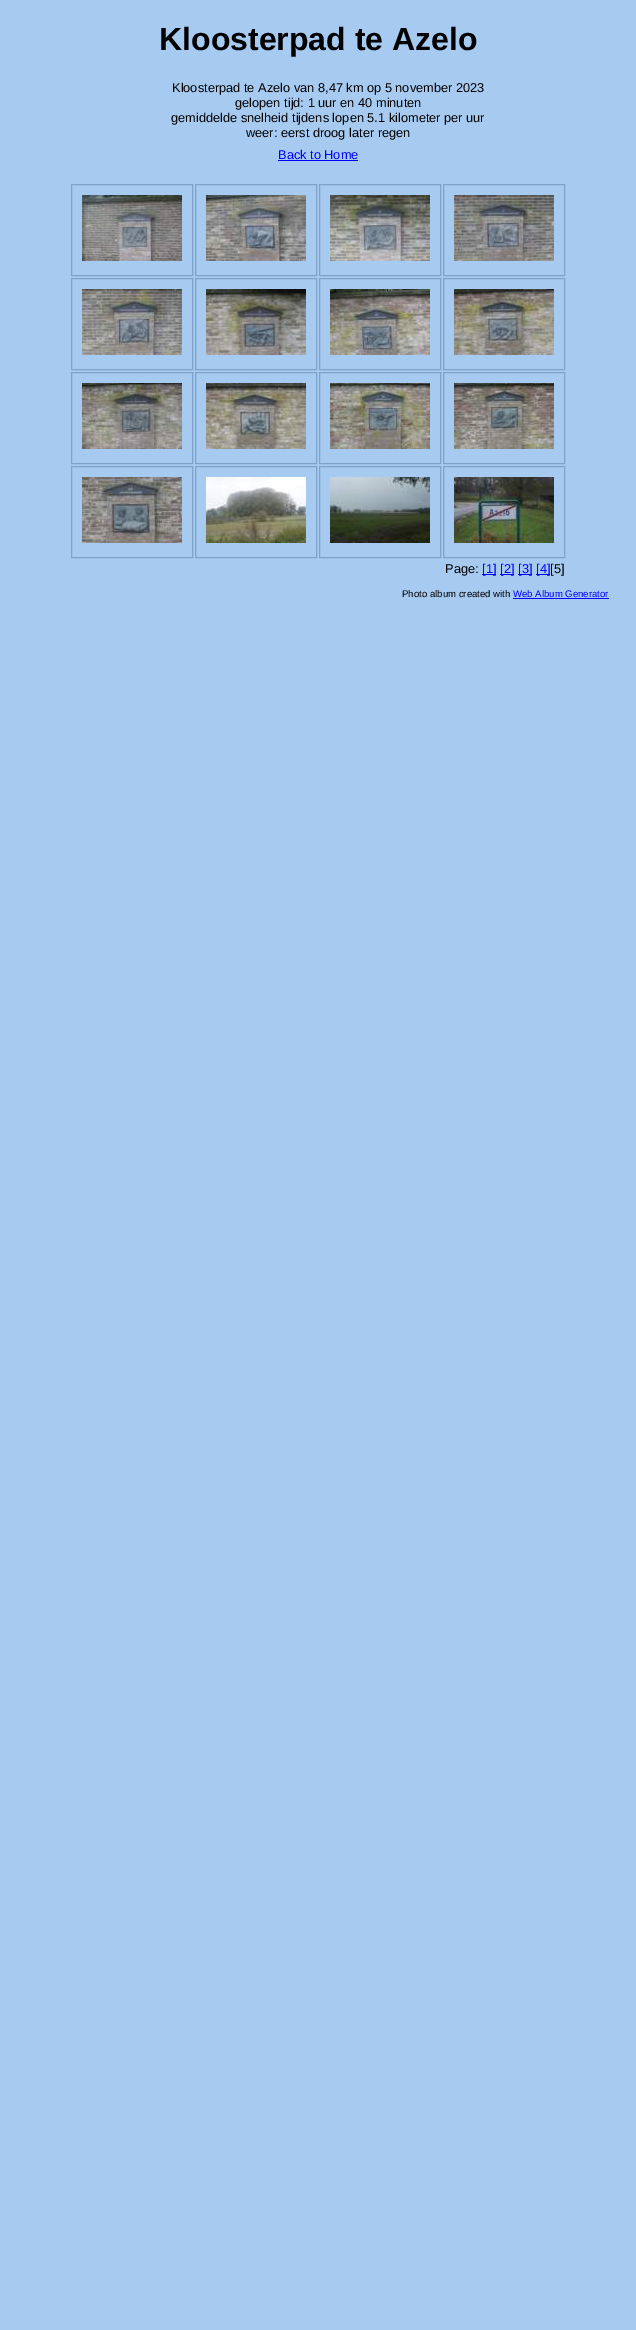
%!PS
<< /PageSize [636 2330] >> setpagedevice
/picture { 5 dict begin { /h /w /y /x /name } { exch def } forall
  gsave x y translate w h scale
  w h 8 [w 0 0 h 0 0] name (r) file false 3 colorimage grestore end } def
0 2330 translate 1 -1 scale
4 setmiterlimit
0.651 0.792 0.941 setrgbcolor
0 0 636 2330 rectfill
/LiberationSans-Bold [32 0 0 -32 0 0] selectfont
0 setgray
159 50 moveto (Kloosterpad te Azelo) show
/LiberationSans-Regular [12.8 0 0 -12.8 0 0] selectfont
172 92 moveto (Kloosterpad te Azelo van 8,47 km op 5 november 2023) show
235 107 moveto (gelopen tijd: 1 uur en 40 minuten) show
171 122 moveto (gemiddelde snelheid tijdens lopen 5.1 kilometer per uur) show
246 137 moveto (weer: eerst droog later regen) show
0 0 1 setrgbcolor
278 159 moveto (Back to Home) show
278 160 80 1 rectfill
0.494 0.635 0.784 setrgbcolor
71.5 184.5 121 91 rectstroke
(img1.rgb) 82 195 100 66 picture
195.5 184.5 121 91 rectstroke
(img2.rgb) 206 195 100 66 picture
319.5 184.5 121 91 rectstroke
(img3.rgb) 330 195 100 66 picture
443.5 184.5 121 91 rectstroke
(img4.rgb) 454 195 100 66 picture
71.5 278.5 121 91 rectstroke
(img5.rgb) 82 289 100 66 picture
195.5 278.5 121 91 rectstroke
(img6.rgb) 206 289 100 66 picture
319.5 278.5 121 91 rectstroke
(img7.rgb) 330 289 100 66 picture
443.5 278.5 121 91 rectstroke
(img8.rgb) 454 289 100 66 picture
71.5 372.5 121 91 rectstroke
(img9.rgb) 82 383 100 66 picture
195.5 372.5 121 91 rectstroke
(img10.rgb) 206 383 100 66 picture
319.5 372.5 121 91 rectstroke
(img11.rgb) 330 383 100 66 picture
443.5 372.5 121 91 rectstroke
(img12.rgb) 454 383 100 66 picture
71.5 466.5 121 91 rectstroke
(img13.rgb) 82 477 100 66 picture
195.5 466.5 121 91 rectstroke
(img14.rgb) 206 477 100 66 picture
319.5 466.5 121 91 rectstroke
(img15.rgb) 330 477 100 66 picture
443.5 466.5 121 91 rectstroke
(img16.rgb) 454 477 100 66 picture
0 setgray
445 573 moveto (Page:) show
0 0 1 setrgbcolor
482 574 14 1 rectfill
482 573 moveto ([1]) show
500 574 14 1 rectfill
500 573 moveto ([2]) show
518 574 14 1 rectfill
518 573 moveto ([3]) show
536 574 14 1 rectfill
536 573 moveto ([4]) show
0 setgray
550 573 moveto ([5]) show
/LiberationSans-Regular [9.6 0 0 -9.6 0 0] selectfont
402 597 moveto (Photo album created with) show
0 0 1 setrgbcolor
513 597 moveto (Web Album Generator) show
513 598 96 1 rectfill
showpage
